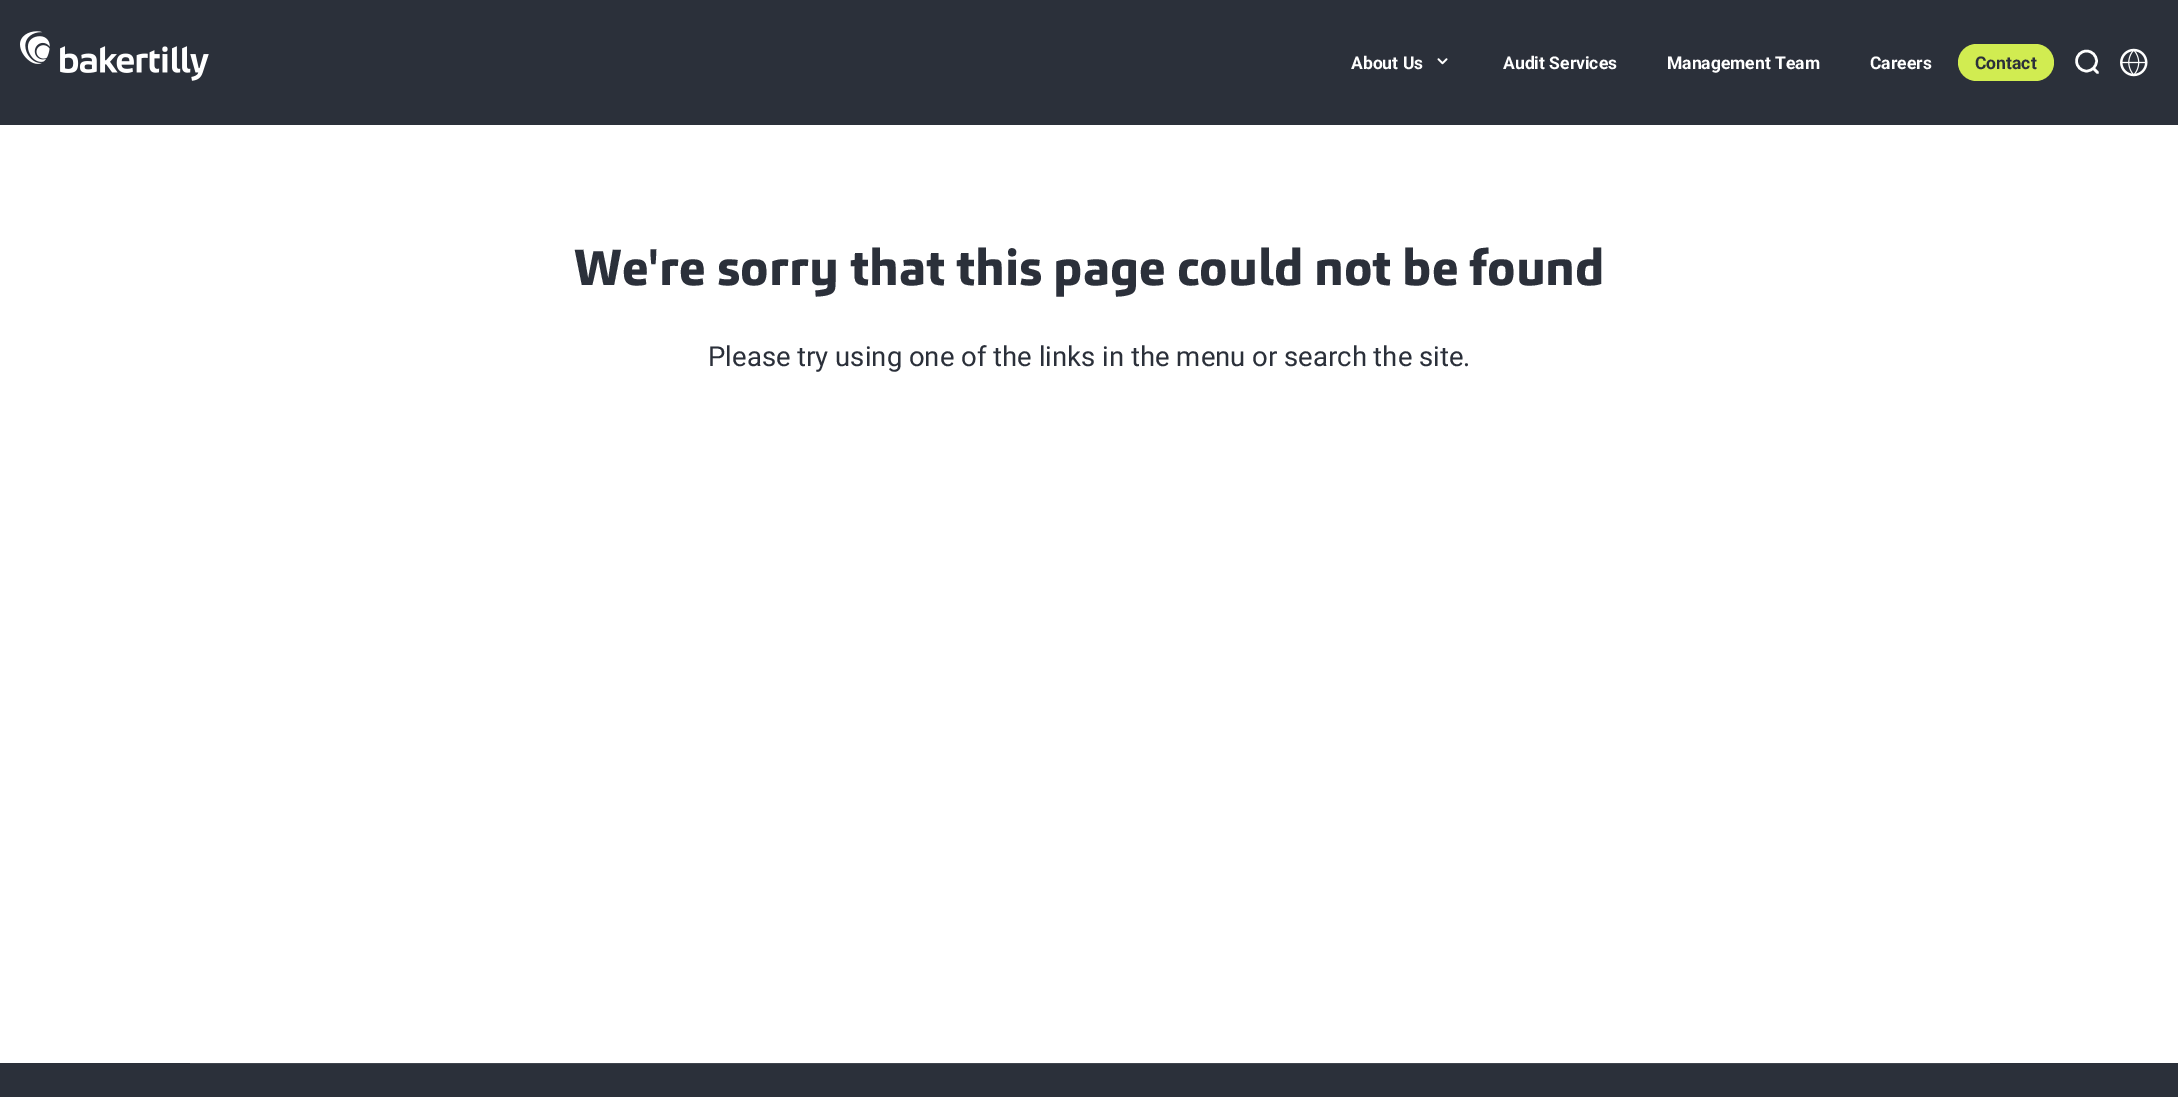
%!PS
<< /PageSize [2178 1097] >> setpagedevice
/roundrect { 5 dict begin { /r /h /w /y /x } { exch def } forall
  x r add y moveto x w add y 2 copy h add r arct x w add y h add x 1 index r arct
  x y h add x y r arct x y 2 copy exch w add exch r arct closepath end } def
/picture { 5 dict begin { /h /w /y /x /name } { exch def } forall
  gsave x y translate w h scale
  w h 8 [w 0 0 h 0 0] name (r) file false 3 colorimage grestore end } def
0 1097 translate 1 -1 scale
4 setmiterlimit
1 setgray
0 0 2178 1097 rectfill
0.169 0.188 0.227 setrgbcolor
0 0 2178 125 rectfill
(img1.rgb) 20 31 189 50 picture
/Roboto-Bold [17.5 0 0 -17.5 0 0] selectfont
1 setgray
1351 69 moveto (About Us) show
(img2.rgb) 1437 58 11 7 picture
1503 69 moveto (Audit Services) show
1667 69 moveto (Management Team) show
1870 69 moveto (Careers) show
0.82 0.925 0.318 setrgbcolor
1958 44 96 37 18.5 roundrect fill
0.169 0.188 0.227 setrgbcolor
1975 69 moveto (Contact) show
1 setgray
2.5 setlinewidth
newpath 2086.5 61 10 0 360 arc closepath stroke
1 setlinecap
newpath 2094 69 moveto 2097.5 72.5 lineto stroke
(img3.rgb) 2120 48 28 29 picture
/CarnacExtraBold-Regular [50 0 0 -50 0 0] selectfont
0.169 0.188 0.227 setrgbcolor
574 285 moveto (We're sorry that this page could not be found) show
/Roboto-Regular [27.5 0 0 -27.5 0 0] selectfont
708 366 moveto (Please try using one of the links in the menu or search the site.) show
0 1063 2178 34 rectfill
0.251 0.271 0.306 setrgbcolor
190 1063 1800 1 rectfill
showpage
